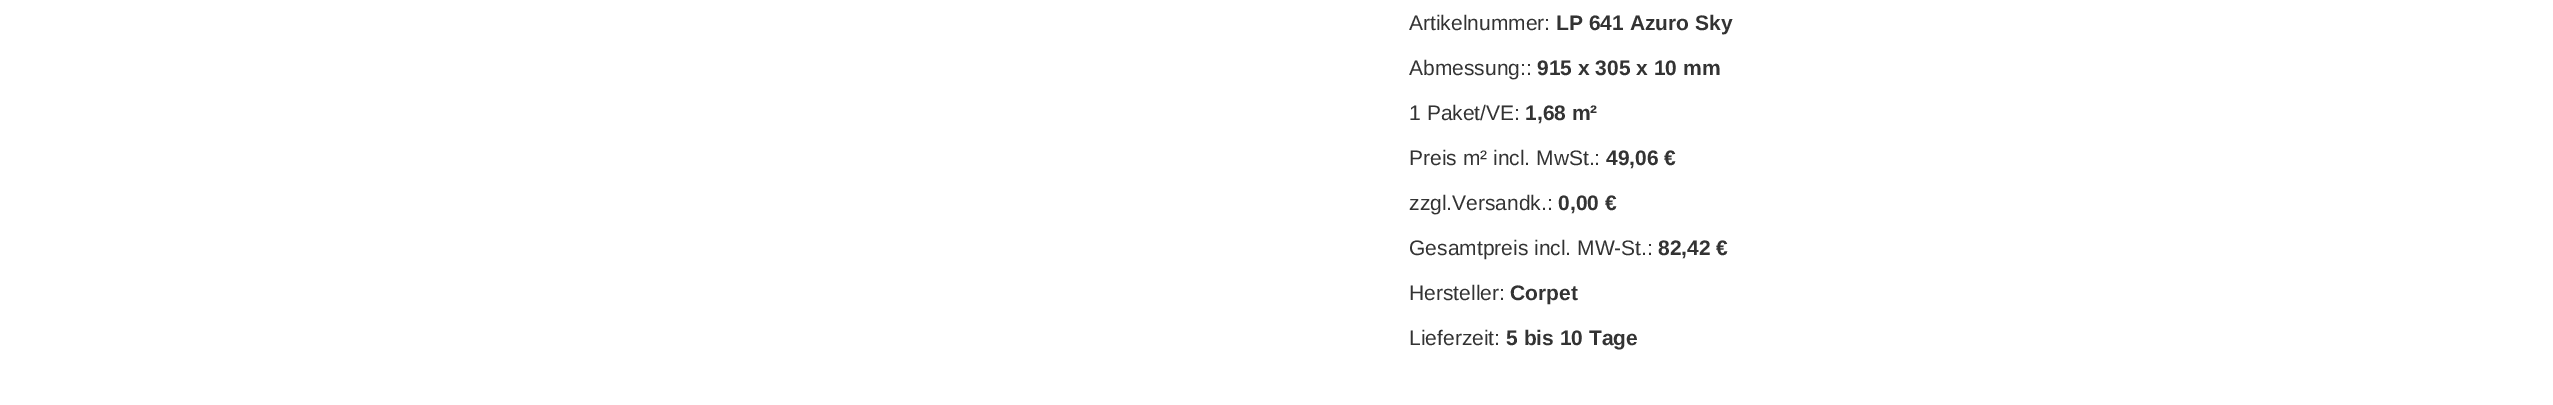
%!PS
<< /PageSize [2553 405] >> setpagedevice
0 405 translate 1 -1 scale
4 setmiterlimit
1 setgray
0 0 2553 405 rectfill
/LiberationSans-Regular [21 0 0 -21 0 0] selectfont
0.2 setgray
1409 30 moveto (Artikelnummer:) show
/LiberationSans-Bold [21 0 0 -21 0 0] selectfont
1556 30 moveto (LP 641 Azuro Sky) show
/LiberationSans-Regular [21 0 0 -21 0 0] selectfont
1409 75 moveto (Abmessung::) show
/LiberationSans-Bold [21 0 0 -21 0 0] selectfont
1537 75 moveto (915 x 305 x 10 mm) show
/LiberationSans-Regular [21 0 0 -21 0 0] selectfont
1409 120 moveto (1 Paket/VE:) show
/LiberationSans-Bold [21 0 0 -21 0 0] selectfont
1525 120 moveto (1,68 m²) show
/LiberationSans-Regular [21 0 0 -21 0 0] selectfont
1409 165 moveto (Preis m² incl. MwSt.:) show
/LiberationSans-Bold [21 0 0 -21 0 0] selectfont
1606 165 moveto (49,06 €) show
/LiberationSans-Regular [21 0 0 -21 0 0] selectfont
1409 210 moveto (zzgl.Versandk.:) show
/LiberationSans-Bold [21 0 0 -21 0 0] selectfont
1558 210 moveto (0,00 €) show
/LiberationSans-Regular [21 0 0 -21 0 0] selectfont
1409 255 moveto (Gesamtpreis incl. MW-St.:) show
/LiberationSans-Bold [21 0 0 -21 0 0] selectfont
1658 255 moveto (82,42 €) show
/LiberationSans-Regular [21 0 0 -21 0 0] selectfont
1409 300 moveto (Hersteller:) show
/LiberationSans-Bold [21 0 0 -21 0 0] selectfont
1510 300 moveto (Corpet) show
/LiberationSans-Regular [21 0 0 -21 0 0] selectfont
1409 345 moveto (Lieferzeit:) show
/LiberationSans-Bold [21 0 0 -21 0 0] selectfont
1506 345 moveto (5 bis 10 Tage) show
showpage
